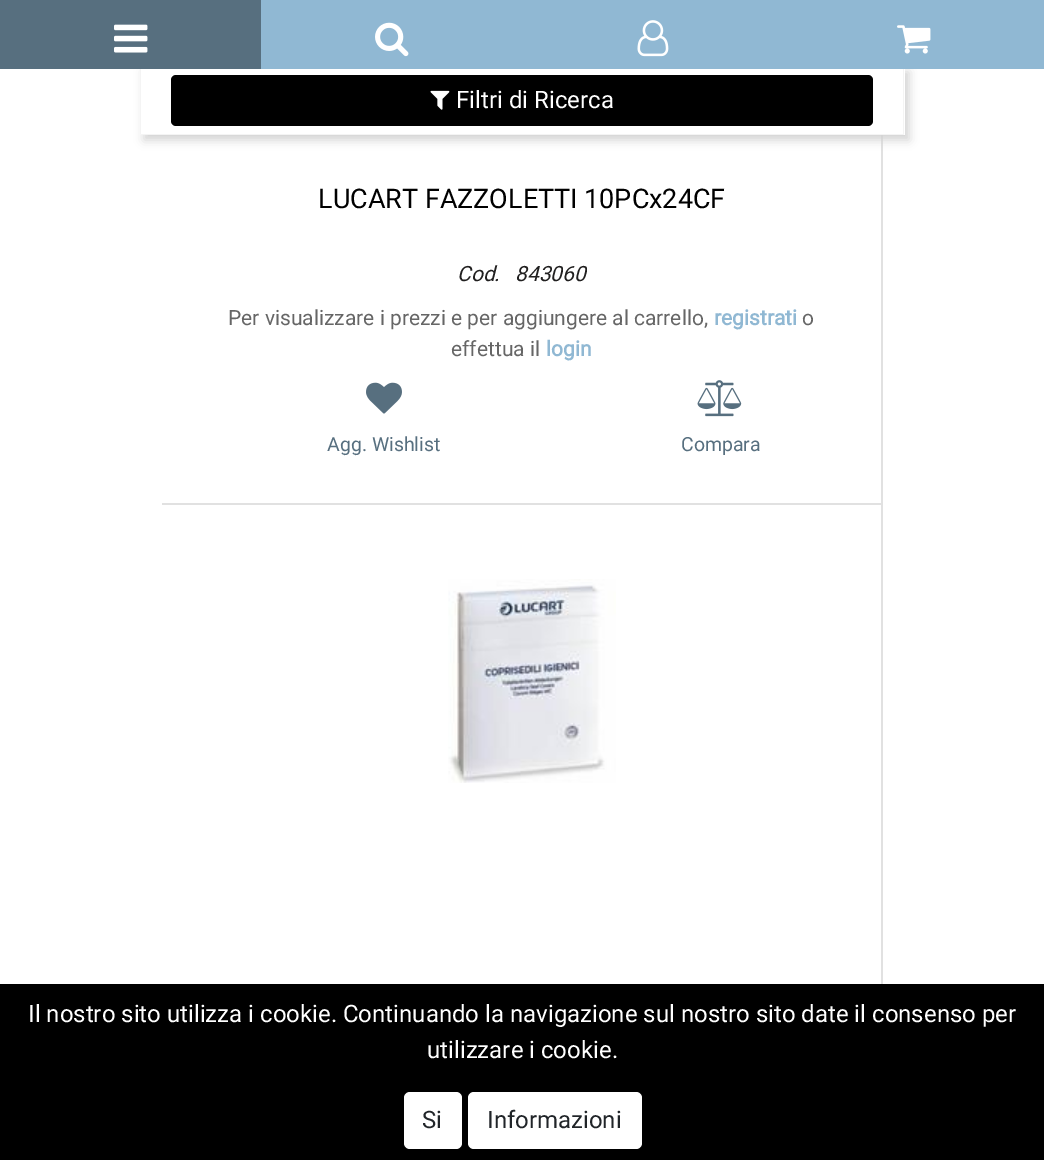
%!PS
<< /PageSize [1044 1160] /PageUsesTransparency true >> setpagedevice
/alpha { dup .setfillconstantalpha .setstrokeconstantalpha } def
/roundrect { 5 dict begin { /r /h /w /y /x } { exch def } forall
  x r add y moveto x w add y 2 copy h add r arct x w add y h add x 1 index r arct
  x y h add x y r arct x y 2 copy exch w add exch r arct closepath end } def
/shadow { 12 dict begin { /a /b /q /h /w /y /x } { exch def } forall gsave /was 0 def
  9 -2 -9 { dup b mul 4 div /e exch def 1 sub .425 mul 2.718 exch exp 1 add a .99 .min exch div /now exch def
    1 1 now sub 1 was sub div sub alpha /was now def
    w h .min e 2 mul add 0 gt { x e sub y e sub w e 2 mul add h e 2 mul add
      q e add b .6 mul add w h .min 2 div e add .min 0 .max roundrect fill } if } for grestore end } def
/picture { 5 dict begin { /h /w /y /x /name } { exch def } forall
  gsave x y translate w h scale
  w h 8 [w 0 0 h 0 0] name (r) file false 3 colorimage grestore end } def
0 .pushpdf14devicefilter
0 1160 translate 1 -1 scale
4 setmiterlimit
1 setgray
0 0 1044 1160 rectfill
0.882 setgray
881 135 2 368 rectfill
0.82 setgray
144 72 765 68 0 5 1 shadow
1 setgray
140 69 765 66 rectfill
0.957 setgray
newpath 904 68 moveto 904 135 lineto 903 134 lineto 903 68 lineto closepath fill
0.88 alpha
0.953 setgray
newpath 904 135 moveto 140 135 lineto 141 134 lineto 903 134 lineto closepath fill
newpath 140 135 moveto 140 68 lineto 141 68 lineto 141 134 lineto closepath fill
1 alpha
0.341 0.435 0.498 setrgbcolor
0 0 261 69 rectfill
(img1.rgb) 114 24 34 29 picture
0.565 0.722 0.827 setrgbcolor
261 0 783 69 rectfill
(img2.rgb) 375 22 34 35 picture
(img3.rgb) 637 20 32 37 picture
(img4.rgb) 897 25 34 29 picture
0 setgray
171 75 702 51 5 roundrect fill
(img5.rgb) 430 90 20 20 picture
/Roboto-Regular [24 0 0 -24 0 0] selectfont
1 setgray
456 108 moveto (Filtri di Ricerca) show
/Roboto-Regular [27 0 0 -27 0 0] selectfont
0 setgray
318 208 moveto (LUCART FAZZOLETTI 10PCx24CF) show
/Roboto-Italic [21 0 0 -21 0 0] selectfont
0.129 0.125 0.125 setrgbcolor
457 281 moveto (Cod.) show
515 281 moveto (843060) show
/Roboto-Regular [21 0 0 -21 0 0] selectfont
0.4 setgray
228 325 moveto (Per visualizzare i prezzi e per aggiungere al carrello,) show
/Roboto-Bold [21 0 0 -21 0 0] selectfont
0.565 0.722 0.827 setrgbcolor
714 325 moveto (registrati) show
/Roboto-Regular [21 0 0 -21 0 0] selectfont
0.4 setgray
802 325 moveto (o) show
451 356 moveto (effettua il) show
/Roboto-Bold [21 0 0 -21 0 0] selectfont
0.565 0.722 0.827 setrgbcolor
546 356 moveto (login) show
(img6.rgb) 366 382 36 32 picture
/Roboto-Regular [19.5 0 0 -19.5 0 0] selectfont
0.341 0.435 0.498 setrgbcolor
327 451 moveto (Agg. Wishlist) show
(img7.rgb) 697 380 45 37 picture
681 451 moveto (Compara) show
0.882 setgray
162 503 720 2 rectfill
881 503 2 481 rectfill
(img8.rgb) 448 579 168 204 picture
0 setgray
0 984 1044 176 rectfill
/Roboto-Regular [24 0 0 -24 0 0] selectfont
1 setgray
28 1022 moveto (Il nostro sito utilizza i cookie. Continuando la navigazione sul nostro sito date il consenso per) show
427 1058 moveto (utilizzare i cookie.) show
404 1092 58 57 6 roundrect fill
0.129 0.145 0.161 setrgbcolor
422 1128 moveto (Si) show
1 setgray
468 1092 174 57 6 roundrect fill
0.129 0.145 0.161 setrgbcolor
487 1128 moveto (Informazioni) show
.poppdf14devicefilter showpage
